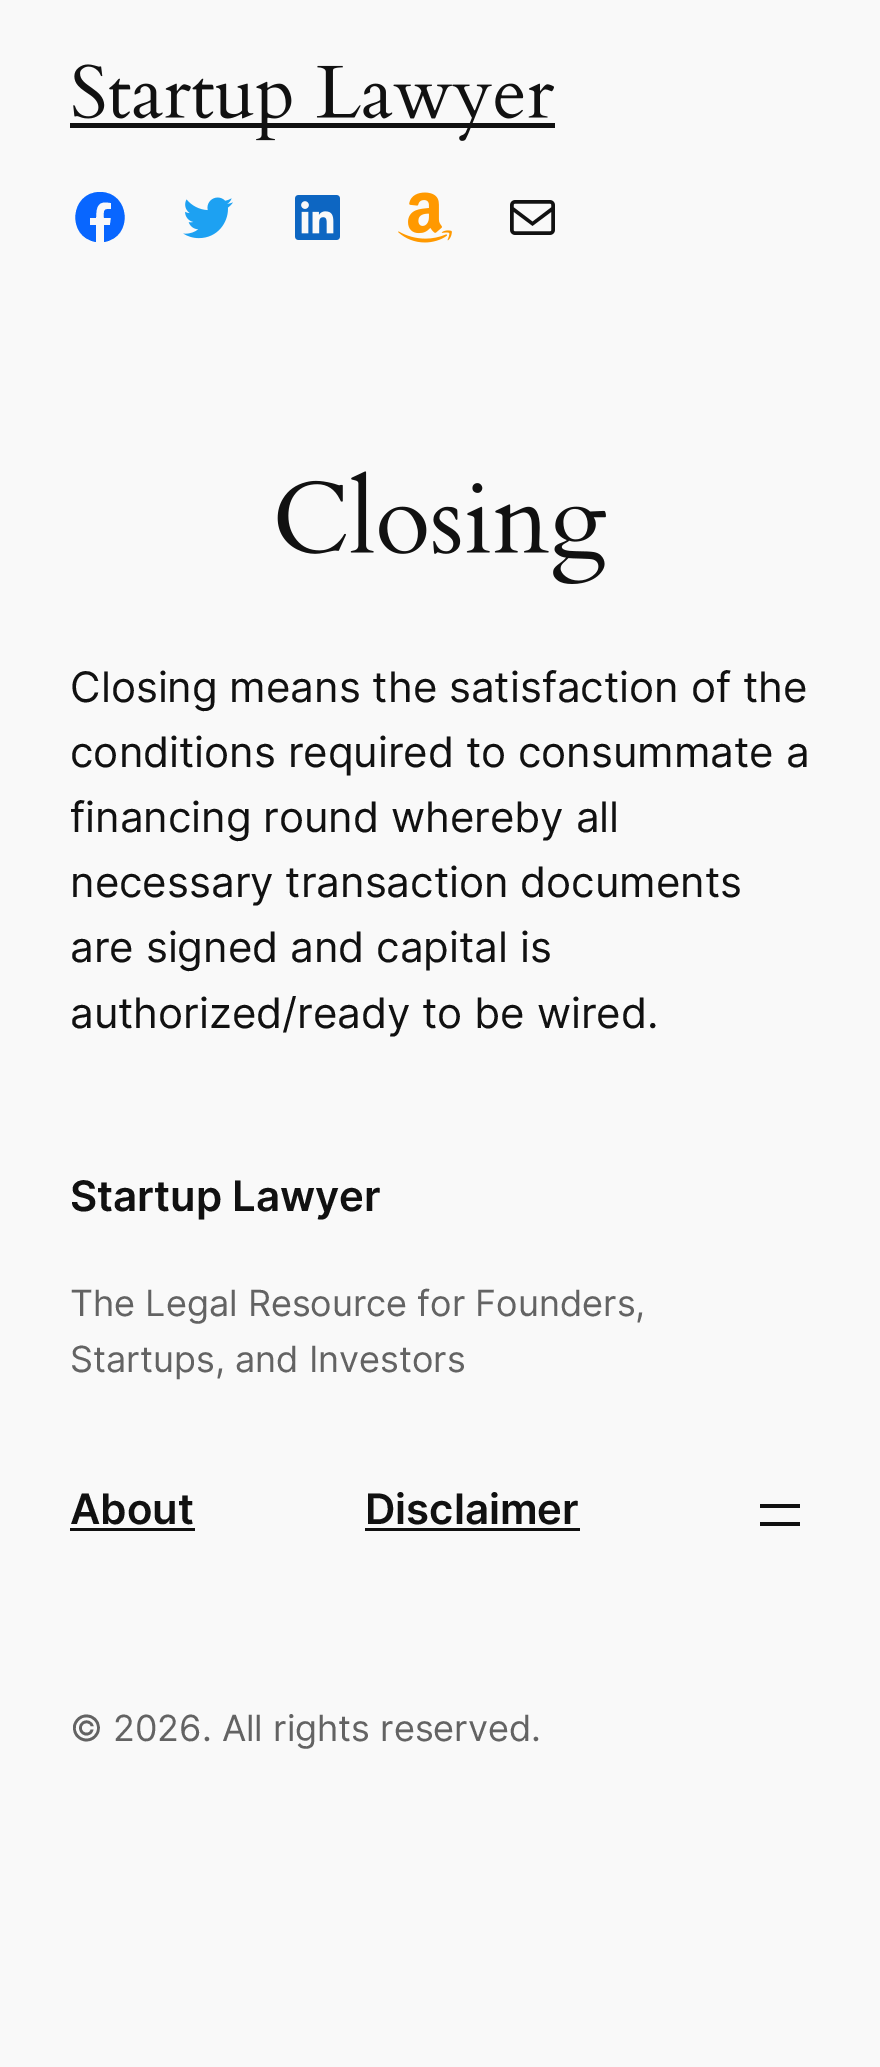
%!PS
<< /PageSize [880 2067] >> setpagedevice
/picture { 5 dict begin { /h /w /y /x /name } { exch def } forall
  gsave x y translate w h scale
  w h 8 [w 0 0 h 0 0] name (r) file false 3 colorimage grestore end } def
0 2067 translate 1 -1 scale
4 setmiterlimit
0.976 setgray
0 0 880 2067 rectfill
0.067 setgray
70 123 485 5 rectfill
(img1.rgb) 73 64 481 77 picture
0.031 0.4 1 setrgbcolor
newpath 100 192 moveto 70 192 66 237 96 242 curveto 96 225 lineto 90 225 lineto 90 218 lineto 96 218 lineto 96 206 98 200 111 203 curveto 111 209 lineto 103 209 104 210 104 218 curveto 111 218 lineto 110 225 lineto 104 225 lineto 104 242 lineto 134 237 130 192 100 192 curveto closepath fill
(img2.rgb) 183 197 50 42 picture
(img3.rgb) 295 195 45 45 picture
(img4.rgb) 398 192 54 51 picture
(img5.rgb) 510 200 45 35 picture
(img6.rgb) 277 471 329 113 picture
/Inter-Regular [42 0 0 -42 0 0] selectfont
0.067 setgray
70 702 moveto (Closing means the satisfaction of the) show
70 767 moveto (conditions required to consummate a) show
70 832 moveto (financing round whereby all) show
70 897 moveto (necessary transaction documents) show
70 962 moveto (are signed and capital is) show
70 1028 moveto (authorized/ready to be wired.) show
/Inter-SemiBold [42 0 0 -42 0 0] selectfont
70 1211 moveto (Startup Lawyer) show
/Inter-Regular [36 0 0 -36 0 0] selectfont
0.388 setgray
70 1316 moveto (The Legal Resource for Founders,) show
70 1372 moveto (Startups, and Investors) show
/Inter-SemiBold [42 0 0 -42 0 0] selectfont
0.067 setgray
70 1524 moveto (About) show
70 1528 125 3 rectfill
365 1524 moveto (Disclaimer) show
365 1528 215 3 rectfill
760 1504 40 4 rectfill
760 1522 40 4 rectfill
/Inter-Regular [36 0 0 -36 0 0] selectfont
0.388 setgray
70 1741 moveto (© 2026. All rights reserved.) show
showpage
